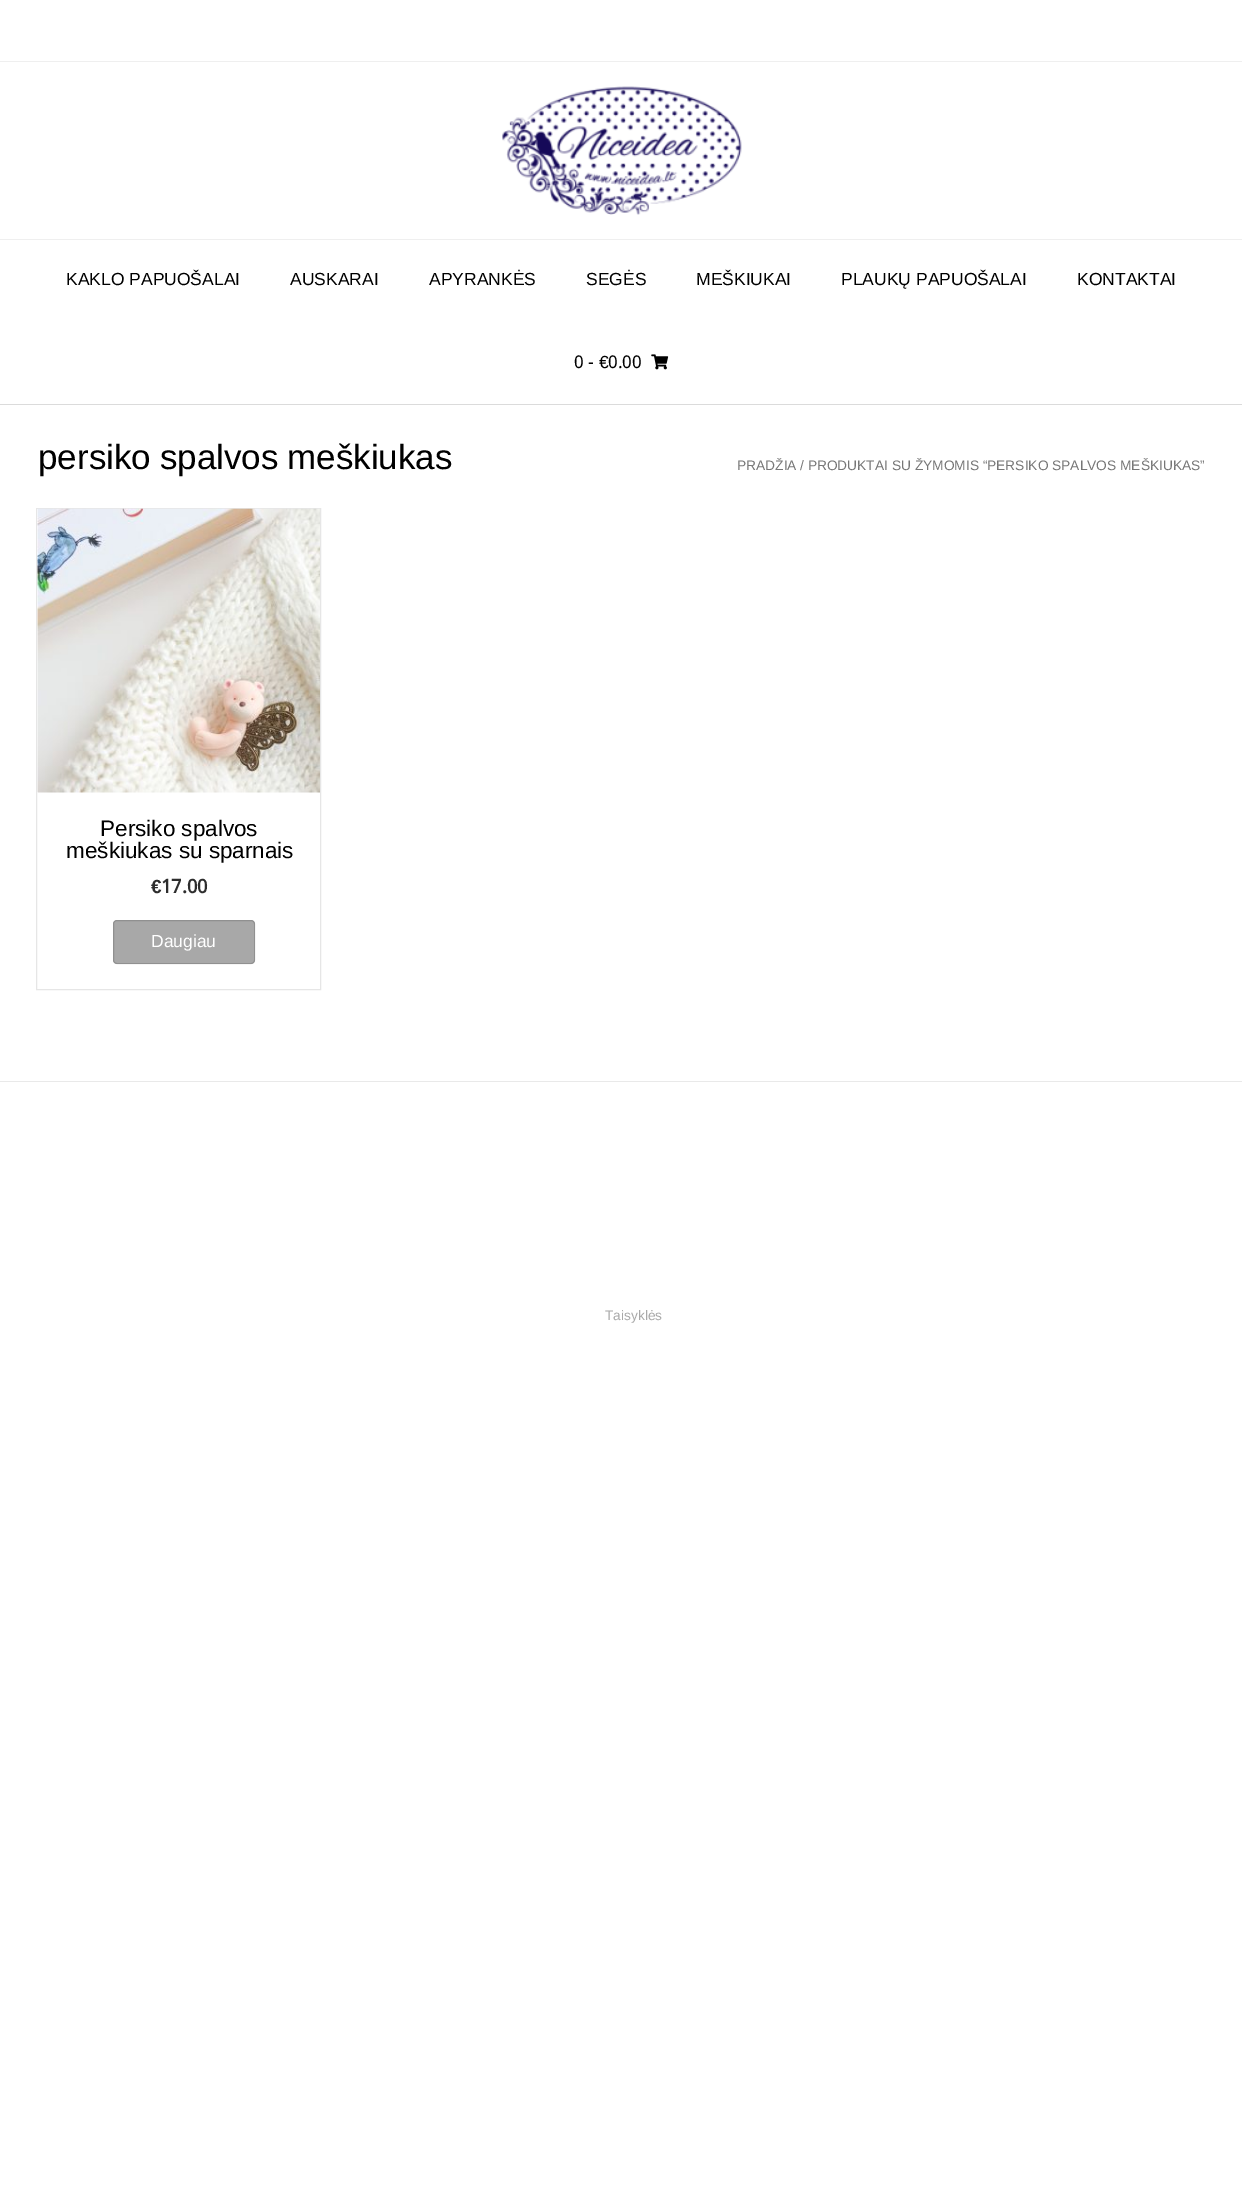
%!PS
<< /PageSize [1242 2195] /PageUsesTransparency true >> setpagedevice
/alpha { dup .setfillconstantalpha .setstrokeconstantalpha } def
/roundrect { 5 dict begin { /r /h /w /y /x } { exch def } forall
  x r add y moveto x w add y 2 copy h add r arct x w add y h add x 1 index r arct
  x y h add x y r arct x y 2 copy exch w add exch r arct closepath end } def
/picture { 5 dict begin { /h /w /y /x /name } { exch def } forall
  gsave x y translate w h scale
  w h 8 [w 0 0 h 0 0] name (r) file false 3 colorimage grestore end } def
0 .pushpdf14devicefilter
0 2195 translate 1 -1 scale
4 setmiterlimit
1 setgray
0 0 1242 2195 rectfill
0.859 setgray
0 404 1242 1 rectfill
0.937 setgray
0 61 1242 1 rectfill
(img1.rgb) 502 86 240 129 picture
0 239 1242 1 rectfill
/LiberationSans-Regular [17.5 0 0 -17.5 0 0] selectfont
0 setgray
66 285 moveto (KAKLO PAPUOŠALAI) show
290 285 moveto (AUSKARAI) show
429 285 moveto (APYRANKĖS) show
586 285 moveto (SEGĖS) show
696 285 moveto (MEŠKIUKAI) show
841 285 moveto (PLAUKŲ PAPUOŠALAI) show
1077 285 moveto (KONTAKTAI) show
/Khmer-Regular [17.5 0 0 -17.5 0 0] selectfont
574 368 moveto (0 -) show
/LiberationSans-Regular [17.5 0 0 -17.5 0 0] selectfont
599 368 moveto (€) show
/Khmer-Regular [17.5 0 0 -17.5 0 0] selectfont
608 368 moveto (0.00) show
(img2.rgb) 651 354 18 16 picture
/LiberationSans-Regular [35 0 0 -35 0 0] selectfont
38 469 moveto -1 0 32 (persiko spalvos meškiukas) widthshow
/LiberationSans-Regular [13.75 0 0 -13.75 0 0] selectfont
0.463 setgray
737 470 moveto (PRADŽIA) show
800 470 moveto (/ PRODUKTAI SU ŽYMOMIS “PERSIKO SPALVOS MEŠKIUKAS”) show
0.902 setgray
36.5 508.5 284 481 rectstroke
(img3.rgb) 37 508 283 285 picture
/LiberationSans-Regular [22.5 0 0 -22.5 0 0] selectfont
0 setgray
100 836 moveto (Persiko spalvos) show
66 858 moveto (meškiukas su sparnais) show
/LiberationSans-Bold [19 0 0 -19 0 0] selectfont
0.176 setgray
151 893 moveto (€) show
/Khmer-Bold [19 0 0 -19 0 0] selectfont
161 893 moveto (17.00) show
0.659 setgray
113 920 142 44 4 roundrect fill
0.14 alpha
0 setgray
113.5 920.5 141 43 3.5 roundrect stroke
/LiberationSans-Regular [17.5 0 0 -17.5 0 0] selectfont
1 alpha
1 setgray
151 947 moveto (Daugiau) show
0.914 setgray
0 1081 1242 1 rectfill
/LiberationSans-Regular [13.75 0 0 -13.75 0 0] selectfont
0.659 setgray
605 1320 moveto (Taisyklės) show
.poppdf14devicefilter showpage
